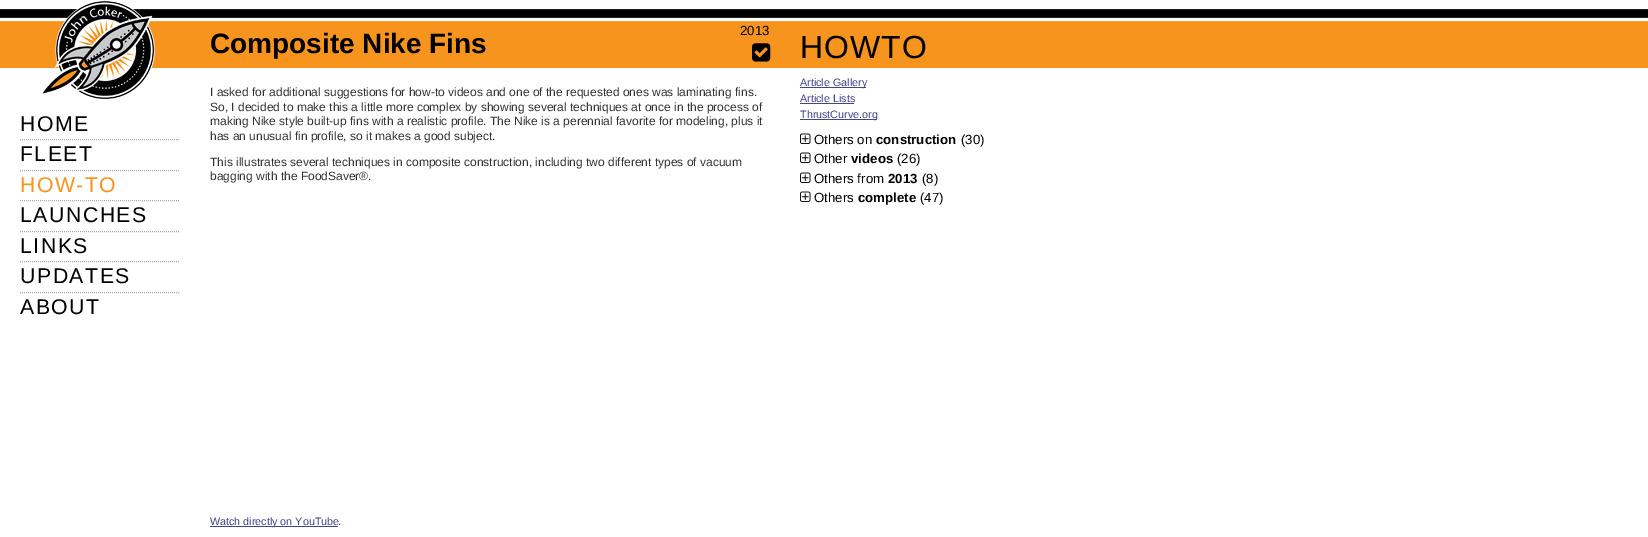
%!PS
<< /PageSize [1648 537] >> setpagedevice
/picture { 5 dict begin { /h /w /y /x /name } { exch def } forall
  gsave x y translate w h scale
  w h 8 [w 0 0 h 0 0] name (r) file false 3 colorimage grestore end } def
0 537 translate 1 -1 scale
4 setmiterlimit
1 setgray
0 0 1648 537 rectfill
(img1.rgb) 0 9 1648 59 picture
/LiberationSans-Regular [13.25 0 0 -13.25 0 0] selectfont
0 setgray
740 35 moveto (2013) show
/LiberationSans-Bold [28 0 0 -28 0 0] selectfont
210 53 moveto (Composite Nike Fins) show
(img2.rgb) 752 43 19 19 picture
/LiberationSans-Regular [32 0 0 -32 0 0] selectfont
800 58 moveto 1 0 (HOWTO) ashow
0.267 0.267 0.533 setrgbcolor
800 87 66 1 rectfill
/LiberationSans-Regular [10.75 0 0 -10.75 0 0] selectfont
800 86 moveto (Article Gallery) show
800 102 moveto (Article Lists) show
800 103 54 1 rectfill
800 119 77 1 rectfill
800 118 moveto (ThrustCurve.org) show
(img3.rgb) 800 133 11 11 picture
/LiberationSans-Regular [13.25 0 0 -13.25 0 0] selectfont
0 setgray
814 144 moveto (Others on) show
/LiberationSans-Bold [13.25 0 0 -13.25 0 0] selectfont
876 144 moveto (construction) show
/LiberationSans-Regular [13.25 0 0 -13.25 0 0] selectfont
961 144 moveto (\(30\)) show
(img3.rgb) 800 152 11 11 picture
814 163 moveto (Other) show
/LiberationSans-Bold [13.25 0 0 -13.25 0 0] selectfont
851 163 moveto (videos) show
/LiberationSans-Regular [13.25 0 0 -13.25 0 0] selectfont
897 163 moveto (\(26\)) show
(img3.rgb) 800 172 11 11 picture
814 183 moveto (Others from) show
/LiberationSans-Bold [13.25 0 0 -13.25 0 0] selectfont
888 183 moveto (2013) show
/LiberationSans-Regular [13.25 0 0 -13.25 0 0] selectfont
922 183 moveto (\(8\)) show
(img3.rgb) 800 191 11 11 picture
814 202 moveto (Others) show
/LiberationSans-Bold [13.25 0 0 -13.25 0 0] selectfont
858 202 moveto (complete) show
/LiberationSans-Regular [13.25 0 0 -13.25 0 0] selectfont
920 202 moveto (\(47\)) show
(img4.rgb) 42 0 113 99 picture
/LiberationSans-Regular [21.25 0 0 -21.25 0 0] selectfont
20 131 moveto 1.5 0 (HOME) ashow
0.667 setgray
[1 1] 0 setdash
newpath 20 139.5 moveto 180 139.5 lineto stroke
0 setgray
20 161 moveto 1.5 0 (FLEET) ashow
0.667 setgray
newpath 20 170.5 moveto 180 170.5 lineto stroke
0.969 0.58 0.114 setrgbcolor
20 192 moveto 1.5 0 (HOW-TO) ashow
0.667 setgray
newpath 20 200.5 moveto 180 200.5 lineto stroke
0 setgray
20 222 moveto 1.5 0 (LAUNCHES) ashow
0.667 setgray
newpath 20 231.5 moveto 180 231.5 lineto stroke
0 setgray
20 253 moveto 1.5 0 (LINKS) ashow
0.667 setgray
newpath 20 261.5 moveto 180 261.5 lineto stroke
0 setgray
20 283 moveto 1.5 0 (UPDATES) ashow
0.667 setgray
newpath 20 292.5 moveto 180 292.5 lineto stroke
0 setgray
20 314 moveto 1.5 0 (ABOUT) ashow
/LiberationSans-Regular [12 0 0 -12 0 0] selectfont
0.2 setgray
210 96 moveto (I asked for additional suggestions for how-to videos and one of the requested ones was laminating fins.) show
210 111 moveto (So, I decided to make this a little more complex by showing several techniques at once in the process of) show
210 125 moveto (making Nike style built-up fins with a realistic profile. The Nike is a perennial favorite for modeling, plus it) show
210 140 moveto (has an unusual fin profile, so it makes a good subject.) show
210 166 moveto (This illustrates several techniques in composite construction, including two different types of vacuum) show
210 180 moveto (bagging with the FoodSaver®.) show
0.267 0.267 0.533 setrgbcolor
210 526 128 1 rectfill
/LiberationSans-Regular [10.75 0 0 -10.75 0 0] selectfont
210 525 moveto (Watch directly on YouTube) show
0.2 setgray
338 525 moveto (.) show
showpage
